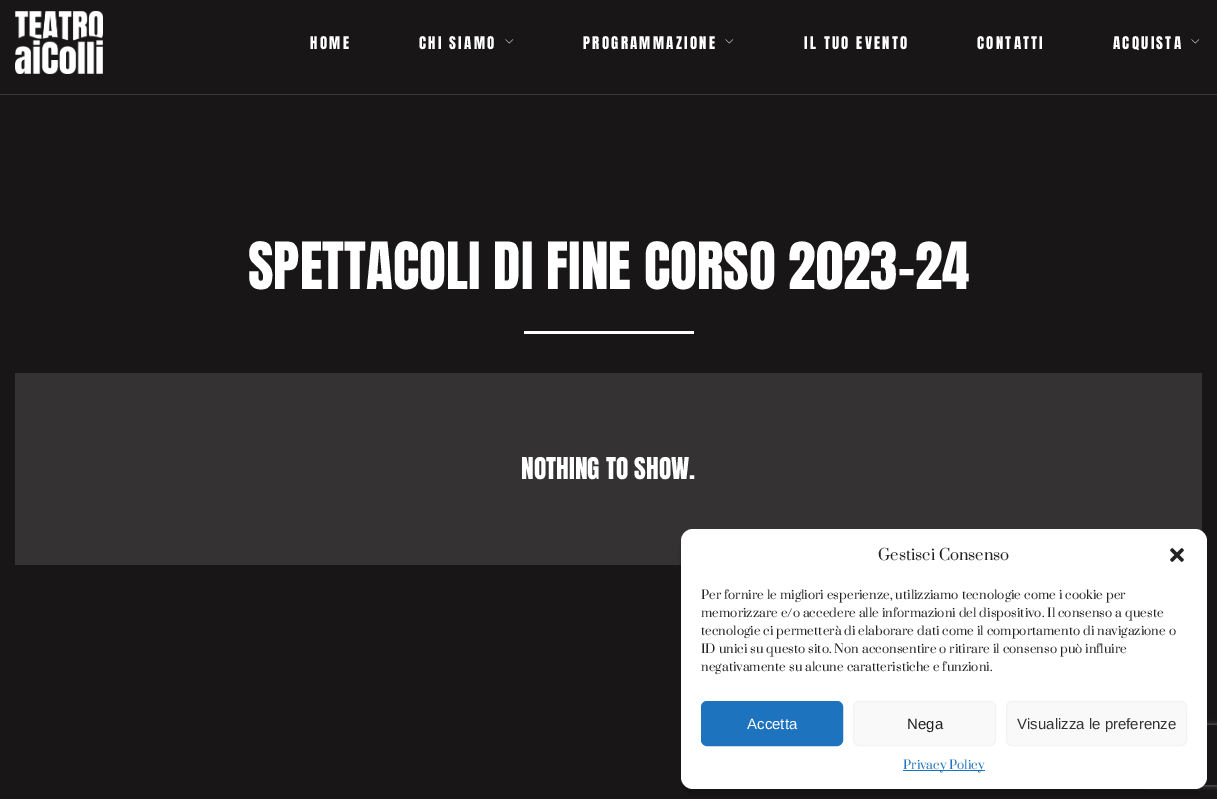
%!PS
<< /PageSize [1217 799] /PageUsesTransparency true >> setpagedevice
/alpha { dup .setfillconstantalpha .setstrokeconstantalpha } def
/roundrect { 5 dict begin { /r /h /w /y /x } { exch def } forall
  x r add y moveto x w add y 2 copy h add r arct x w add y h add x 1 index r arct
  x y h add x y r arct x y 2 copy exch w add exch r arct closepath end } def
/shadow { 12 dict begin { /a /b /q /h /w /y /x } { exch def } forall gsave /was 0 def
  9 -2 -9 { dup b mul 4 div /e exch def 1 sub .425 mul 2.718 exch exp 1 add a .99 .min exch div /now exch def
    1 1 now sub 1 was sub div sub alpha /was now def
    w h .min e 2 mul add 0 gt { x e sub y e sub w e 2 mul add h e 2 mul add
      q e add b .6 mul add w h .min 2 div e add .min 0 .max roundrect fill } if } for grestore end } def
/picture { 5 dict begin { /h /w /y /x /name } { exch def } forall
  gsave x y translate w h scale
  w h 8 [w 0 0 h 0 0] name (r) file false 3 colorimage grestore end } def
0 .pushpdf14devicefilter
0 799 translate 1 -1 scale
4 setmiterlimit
0.094 0.086 0.086 setrgbcolor
0 0 1217 799 rectfill
0.204 0.196 0.196 setrgbcolor
15 373 1187 192 rectfill
(img1.rgb) 15 11 88 63 picture
/Anton-Regular [14.9 0 0 -14.9 0 0] selectfont
1 setgray
310 49 moveto 2.25 0 (HOME) ashow
419 49 moveto 2.25 0 (CHI SIAMO) ashow
(img2.rgb) 505 39 9 5 picture
583 49 moveto 2.25 0 (PROGRAMMAZIONE) ashow
(img2.rgb) 725 39 9 5 picture
804 49 moveto 2.25 0 (IL TUO EVENTO) ashow
977 49 moveto 2.25 0 (CONTATTI) ashow
1113 49 moveto 2.25 0 (ACQUISTA) ashow
(img2.rgb) 1191 39 9 5 picture
0.231 0.224 0.224 setrgbcolor
0 94 1217 1 rectfill
/Anton-Regular [55.25 0 0 -55.25 0 0] selectfont
1 setgray
248 289 moveto (SPETTACOLI DI FINE CORSO 2023-24) show
524 331 170 3 rectfill
/Anton-Regular [25.5 0 0 -25.5 0 0] selectfont
521 479 moveto (NOTHING TO SHOW.) show
0 setgray
681 535 526 260 12 3 0.23 shadow
gsave
newpath 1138 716 moveto 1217 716 lineto 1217 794 lineto 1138 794 lineto closepath 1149 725 moveto 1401 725 lineto 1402 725 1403 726 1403 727 curveto 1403 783 lineto 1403 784 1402 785 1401 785 curveto 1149 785 lineto 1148 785 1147 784 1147 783 curveto 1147 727 lineto 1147 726 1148 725 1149 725 curveto closepath eoclip newpath
0.502 setgray
1147 725 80 60 2 2.5 1 shadow
grestore
1 setgray
681 529 526 260 12 roundrect fill
/Prata-Regular [15 0 0 -15 0 0] selectfont
0.133 setgray
878 560 moveto (Gestisci Consenso) show
(img3.rgb) 1170 548 14 14 picture
/Prata-Regular [12 0 0 -12 0 0] selectfont
701 599 moveto (Per fornire le migliori esperienze, utilizziamo tecnologie come i cookie per) show
701 617 moveto (memorizzare e/o accedere alle informazioni del dispositivo. Il consenso a queste) show
701 635 moveto (tecnologie ci permetterà di elaborare dati come il comportamento di navigazione o) show
701 653 moveto (ID unici su questo sito. Non acconsentire o ritirare il consenso può influire) show
701 671 moveto (negativamente su alcune caratteristiche e funzioni.) show
0.118 0.451 0.745 setrgbcolor
701.5 701.5 141 44 5.5 roundrect gsave fill grestore
stroke
/LiberationSans-Regular [15 0 0 -15 0 0] selectfont
1 setgray
747 729 moveto (Accetta) show
0.976 setgray
853.5 701.5 142 44 5.5 roundrect gsave fill grestore
0.949 setgray
stroke
0.133 setgray
907 729 moveto (Nega) show
0.976 setgray
1006.5 701.5 180 44 5.5 roundrect gsave fill grestore
0.949 setgray
stroke
0.2 setgray
1017 729 moveto (Visualizza le preferenze) show
0.118 0.451 0.745 setrgbcolor
903 770 82 1 rectfill
/Prata-Regular [12 0 0 -12 0 0] selectfont
903 769 moveto (Privacy Policy) show
.poppdf14devicefilter showpage
